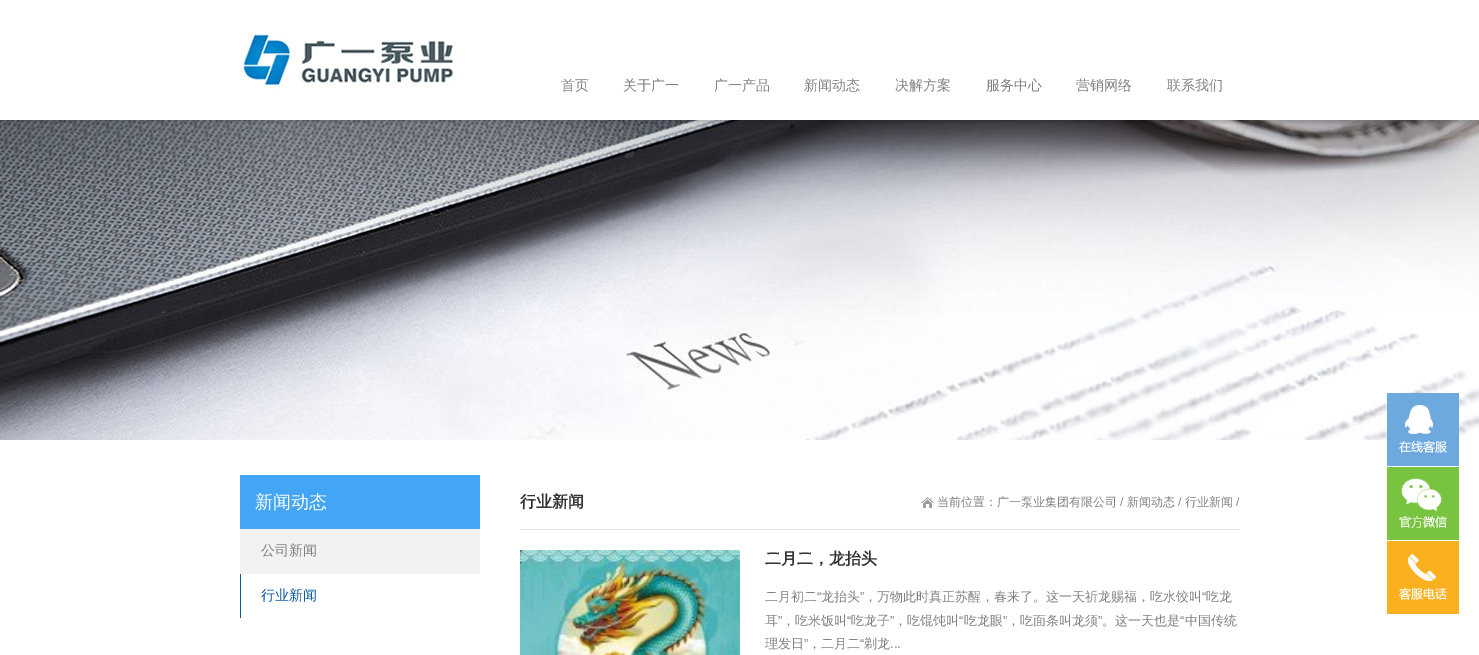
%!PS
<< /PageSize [1479 655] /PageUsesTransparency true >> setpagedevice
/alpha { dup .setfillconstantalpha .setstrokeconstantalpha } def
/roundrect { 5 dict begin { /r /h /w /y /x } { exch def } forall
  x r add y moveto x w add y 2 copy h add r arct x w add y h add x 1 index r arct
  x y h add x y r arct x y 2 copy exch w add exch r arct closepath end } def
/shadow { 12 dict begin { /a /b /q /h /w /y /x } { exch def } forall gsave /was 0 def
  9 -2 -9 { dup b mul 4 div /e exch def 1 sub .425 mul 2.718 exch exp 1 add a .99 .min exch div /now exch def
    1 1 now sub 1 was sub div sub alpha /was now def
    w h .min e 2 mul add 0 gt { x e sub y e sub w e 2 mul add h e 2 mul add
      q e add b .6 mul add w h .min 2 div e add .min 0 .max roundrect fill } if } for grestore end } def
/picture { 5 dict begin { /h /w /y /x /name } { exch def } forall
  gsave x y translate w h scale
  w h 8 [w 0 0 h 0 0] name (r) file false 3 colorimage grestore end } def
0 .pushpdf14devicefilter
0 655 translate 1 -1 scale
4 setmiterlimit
1 setgray
0 0 1479 655 rectfill
(img2.rgb) 0 120 1479 320 picture
gsave
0 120 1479 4 rectclip
0 setgray
0 2 1479 120 0 2 0.15 shadow
grestore
(img1.rgb) 240 33 216 56 picture
/WenQuanYiZenHei-Medium [14 0 0 -14 0 0] selectfont
0.502 setgray
561 90 moveto (首页) show
623 90 moveto (关于广一) show
714 90 moveto (广一产品) show
804 90 moveto (新闻动态) show
895 90 moveto (决解方案) show
986 90 moveto (服务中心) show
1076 90 moveto (营销网络) show
1167 90 moveto (联系我们) show
0.949 setgray
240 529 240 45 rectfill
0.259 0.647 0.961 setrgbcolor
240 475 240 54 rectfill
/WenQuanYiZenHei-Medium [18 0 0 -18 0 0] selectfont
1 setgray
255 508 moveto (新闻动态) show
/WenQuanYiZenHei-Medium [14 0 0 -14 0 0] selectfont
0.502 setgray
261 555 moveto (公司新闻) show
0.043 0.353 0.624 setrgbcolor
240 574 1 44 rectfill
261 600 moveto (行业新闻) show
0.898 setgray
520 529 720 1 rectfill
/WenQuanYiZenHei-Bold [16 0 0 -16 0 0] selectfont
0.2 setgray
520 507 moveto (行业新闻) show
(img3.rgb) 921 497 13 11 picture
/WenQuanYiZenHei-Medium [12 0 0 -12 0 0] selectfont
0.502 setgray
937 506 moveto (当前位置：广一泵业集团有限公司) show
/LiberationSans-Regular [12 0 0 -12 0 0] selectfont
1120 506 moveto (/) show
/WenQuanYiZenHei-Medium [12 0 0 -12 0 0] selectfont
1127 506 moveto (新闻动态) show
/LiberationSans-Regular [12 0 0 -12 0 0] selectfont
1178 506 moveto (/) show
/WenQuanYiZenHei-Medium [12 0 0 -12 0 0] selectfont
1185 506 moveto (行业新闻) show
/LiberationSans-Regular [12 0 0 -12 0 0] selectfont
1236 506 moveto (/) show
(img4.rgb) 520 550 220 105 picture
/WenQuanYiZenHei-Bold [16 0 0 -16 0 0] selectfont
0.2 setgray
765 564 moveto (二月二，龙抬头) show
/WenQuanYiZenHei-Medium [13 0 0 -13 0 0] selectfont
0.502 setgray
765 601 moveto (二月初二) show
/LiberationSans-Regular [13 0 0 -13 0 0] selectfont
817 601 moveto (“) show
/WenQuanYiZenHei-Medium [13 0 0 -13 0 0] selectfont
821 601 moveto (龙抬头) show
/LiberationSans-Regular [13 0 0 -13 0 0] selectfont
860 601 moveto (”) show
/WenQuanYiZenHei-Medium [13 0 0 -13 0 0] selectfont
864 601 moveto (，万物此时真正苏醒，春来了。这一天祈龙赐福，吃水饺叫) show
/LiberationSans-Regular [13 0 0 -13 0 0] selectfont
1202 601 moveto (“) show
/WenQuanYiZenHei-Medium [13 0 0 -13 0 0] selectfont
1206 601 moveto (吃龙) show
765 625 moveto (耳) show
/LiberationSans-Regular [13 0 0 -13 0 0] selectfont
778 625 moveto (”) show
/WenQuanYiZenHei-Medium [13 0 0 -13 0 0] selectfont
782 625 moveto (，吃米饭叫) show
/LiberationSans-Regular [13 0 0 -13 0 0] selectfont
847 625 moveto (“) show
/WenQuanYiZenHei-Medium [13 0 0 -13 0 0] selectfont
851 625 moveto (吃龙子) show
/LiberationSans-Regular [13 0 0 -13 0 0] selectfont
890 625 moveto (”) show
/WenQuanYiZenHei-Medium [13 0 0 -13 0 0] selectfont
894 625 moveto (，吃馄饨叫) show
/LiberationSans-Regular [13 0 0 -13 0 0] selectfont
959 625 moveto (“) show
/WenQuanYiZenHei-Medium [13 0 0 -13 0 0] selectfont
964 625 moveto (吃龙眼) show
/LiberationSans-Regular [13 0 0 -13 0 0] selectfont
1003 625 moveto (”) show
/WenQuanYiZenHei-Medium [13 0 0 -13 0 0] selectfont
1007 625 moveto (，吃面条叫龙须) show
/LiberationSans-Regular [13 0 0 -13 0 0] selectfont
1098 625 moveto (”) show
/WenQuanYiZenHei-Medium [13 0 0 -13 0 0] selectfont
1102 625 moveto (。这一天也是) show
/LiberationSans-Regular [13 0 0 -13 0 0] selectfont
1180 625 moveto (“) show
/WenQuanYiZenHei-Medium [13 0 0 -13 0 0] selectfont
1185 625 moveto (中国传统) show
gsave
765 550 475 101 rectclip
765 648 moveto (理发日) show
grestore
/LiberationSans-Regular [13 0 0 -13 0 0] selectfont
804 648 moveto (”) show
/WenQuanYiZenHei-Medium [13 0 0 -13 0 0] selectfont
808 648 moveto (，二月二) show
/LiberationSans-Regular [13 0 0 -13 0 0] selectfont
860 648 moveto (“) show
/WenQuanYiZenHei-Medium [13 0 0 -13 0 0] selectfont
864 648 moveto (剃龙) show
/LiberationSans-Regular [13 0 0 -13 0 0] selectfont
890 648 moveto (...) show
0.427 0.663 0.871 setrgbcolor
1387 393 72 73 rectfill
(img5.rgb) 1399 405 48 48 picture
0.471 0.765 0.251 setrgbcolor
1387 467 72 73 rectfill
(img6.rgb) 1399 478 48 50 picture
0.984 0.69 0.122 setrgbcolor
1387 541 72 73 rectfill
(img7.rgb) 1399 554 48 46 picture
.poppdf14devicefilter showpage
